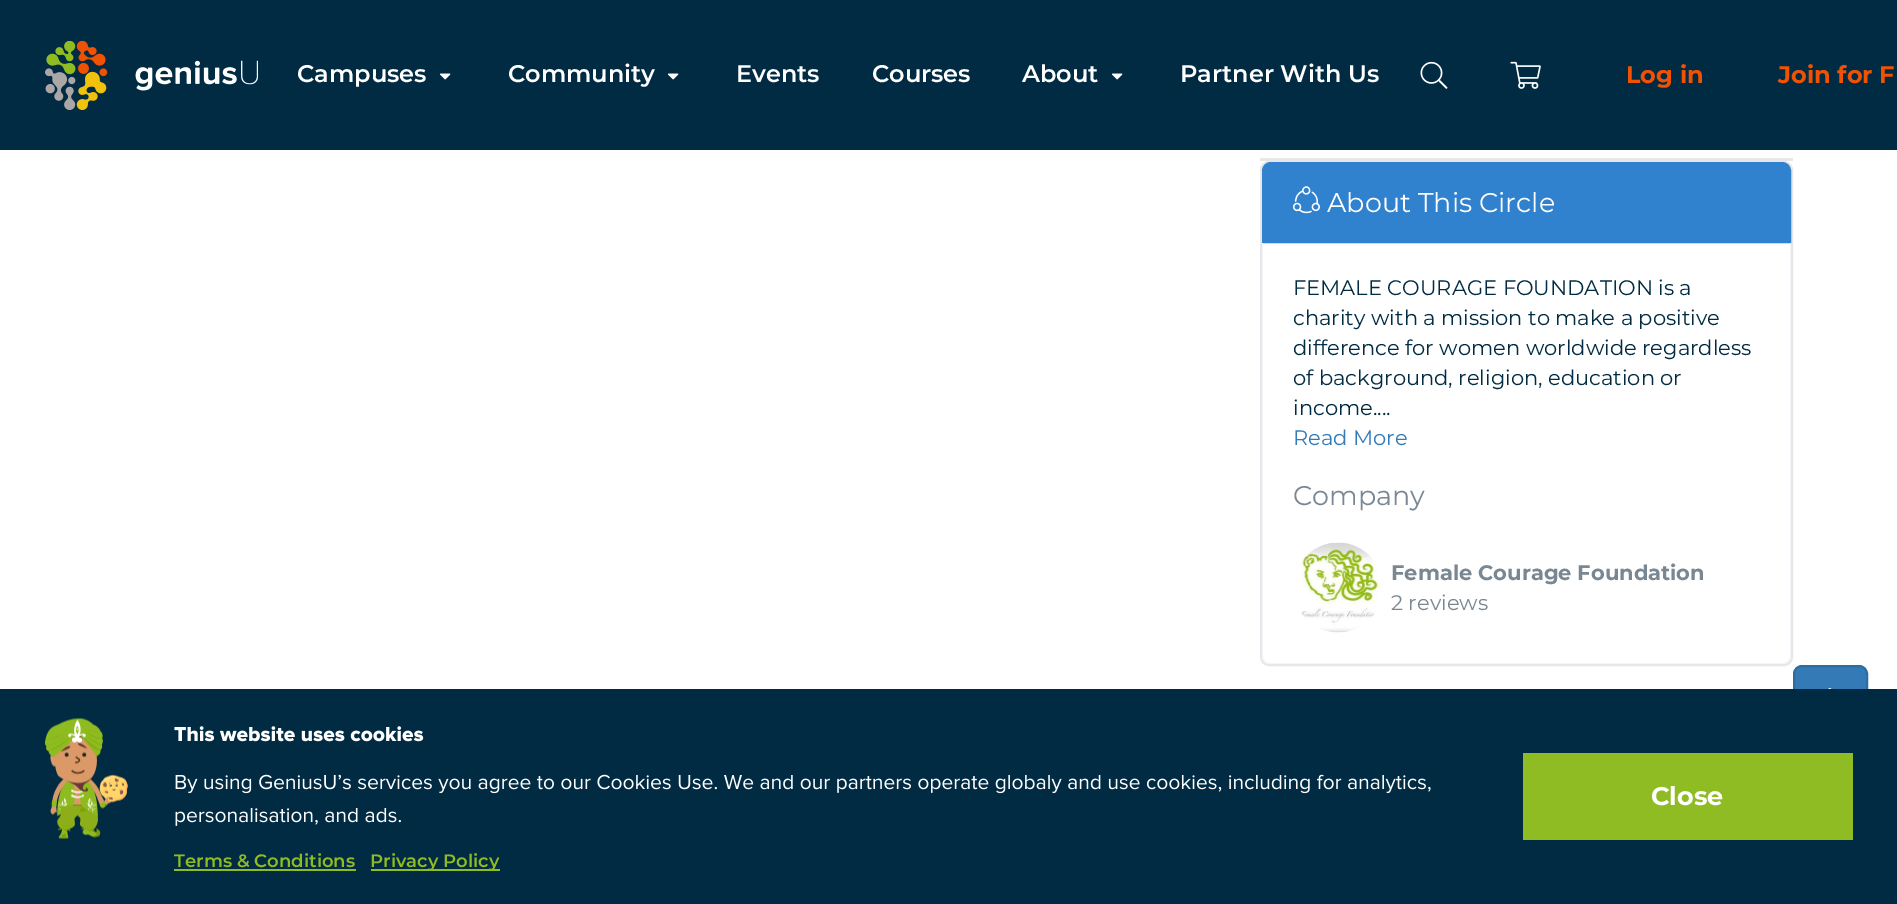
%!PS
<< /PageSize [1897 904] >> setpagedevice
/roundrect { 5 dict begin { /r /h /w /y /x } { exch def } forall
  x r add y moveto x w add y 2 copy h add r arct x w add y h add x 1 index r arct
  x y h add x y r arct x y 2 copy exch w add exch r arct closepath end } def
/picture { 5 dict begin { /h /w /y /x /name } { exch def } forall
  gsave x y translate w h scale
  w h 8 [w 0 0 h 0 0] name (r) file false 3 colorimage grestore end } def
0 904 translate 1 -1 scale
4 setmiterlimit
1 setgray
0 0 1897 904 rectfill
0 0.169 0.263 setrgbcolor
0 0 1897 150 rectfill
(img1.rgb) 45 41 213 69 picture
/Montserrat-SemiBold [24 0 0 -24 0 0] selectfont
1 setgray
297 82 moveto (Campuses) show
(img2.rgb) 439 73 12 7 picture
508 82 moveto (Community) show
(img2.rgb) 667 73 12 7 picture
736 82 moveto (Events) show
872 82 moveto (Courses) show
1022 82 moveto (About) show
(img2.rgb) 1111 73 12 7 picture
1180 82 moveto (Partner With Us) show
(img3.rgb) 1420 61 28 28 picture
(img4.rgb) 1510 61 31 28 picture
/Montserrat-Bold [24 0 0 -24 0 0] selectfont
0.941 0.322 0.012 setrgbcolor
1626 83 moveto (Log in) show
1778 83 moveto (Join for F) show
0.906 setgray
1260 158 533 3 1.5 roundrect fill
2 setlinewidth
1261 162 531 503 8 roundrect stroke
0.188 0.506 0.808 setrgbcolor
newpath 1271 163 moveto 1782 163 lineto 1786.5 163 1790 166.5 1790 171 curveto 1790 242 lineto 1263 242 lineto 1263 171 lineto 1263 166.5 1266.5 163 1271 163 curveto closepath gsave fill grestore
stroke
(img5.rgb) 1293 186 27 28 picture
/Montserrat-Regular [27 0 0 -27 0 0] selectfont
1 setgray
1327 212 moveto (About This Circle) show
0.961 0.957 0.984 setrgbcolor
newpath 1262 243 moveto 1791 243 lineto 1791 656 lineto 1791 660 1787 664 1782 664 curveto 1270 664 lineto 1266 664 1262 660 1262 656 curveto closepath 1263 243 moveto 1790 243 lineto 1790 656 lineto 1790 660 1786 663 1782 663 curveto 1270 663 lineto 1266 663 1263 660 1263 656 curveto closepath eofill
/Montserrat-Regular [21 0 0 -21 0 0] selectfont
0 0.169 0.263 setrgbcolor
1293 295 moveto (FEMALE COURAGE FOUNDATION is a) show
1293 325 moveto (charity with a mission to make a positive) show
1293 355 moveto (difference for women worldwide regardless) show
1293 385 moveto (of background, religion, education or) show
1293 415 moveto (income....) show
0.2 0.478 0.718 setrgbcolor
1293 445 moveto (Read More) show
/Montserrat-Regular [27 0 0 -27 0 0] selectfont
0.475 0.529 0.576 setrgbcolor
1293 505 moveto (Company) show
(img6.rgb) 1300 542 83 91 picture
/Montserrat-Bold [21 0 0 -21 0 0] selectfont
1391 580 moveto (Female Courage Foundation) show
/Montserrat-Regular [21 0 0 -21 0 0] selectfont
1391 610 moveto (2 reviews) show
0.2 0.478 0.718 setrgbcolor
1794 666 73 58 8 roundrect gsave fill grestore
0.18 0.427 0.643 setrgbcolor
stroke
(img7.rgb) 1828 687 4 2 picture
0 0.169 0.263 setrgbcolor
0 689 1897 215 rectfill
0.561 0.733 0.137 setrgbcolor
1523 753 330 87 rectfill
/Montserrat-Bold [25.5 0 0 -25.5 0 0] selectfont
1 setgray
1651 805 moveto (Close) show
(img8.rgb) 45 718 83 121 picture
(img9.rgb) 174 726 250 16 picture
(img10.rgb) 175 774 1256 20 picture
(img11.rgb) 175 808 226 18 picture
/Montserrat-SemiBold [18 0 0 -18 0 0] selectfont
0.561 0.733 0.137 setrgbcolor
174 867 moveto (Terms & Conditions) show
174 869 182 2 rectfill
371 869 129 2 rectfill
370 867 moveto (Privacy Policy) show
showpage
